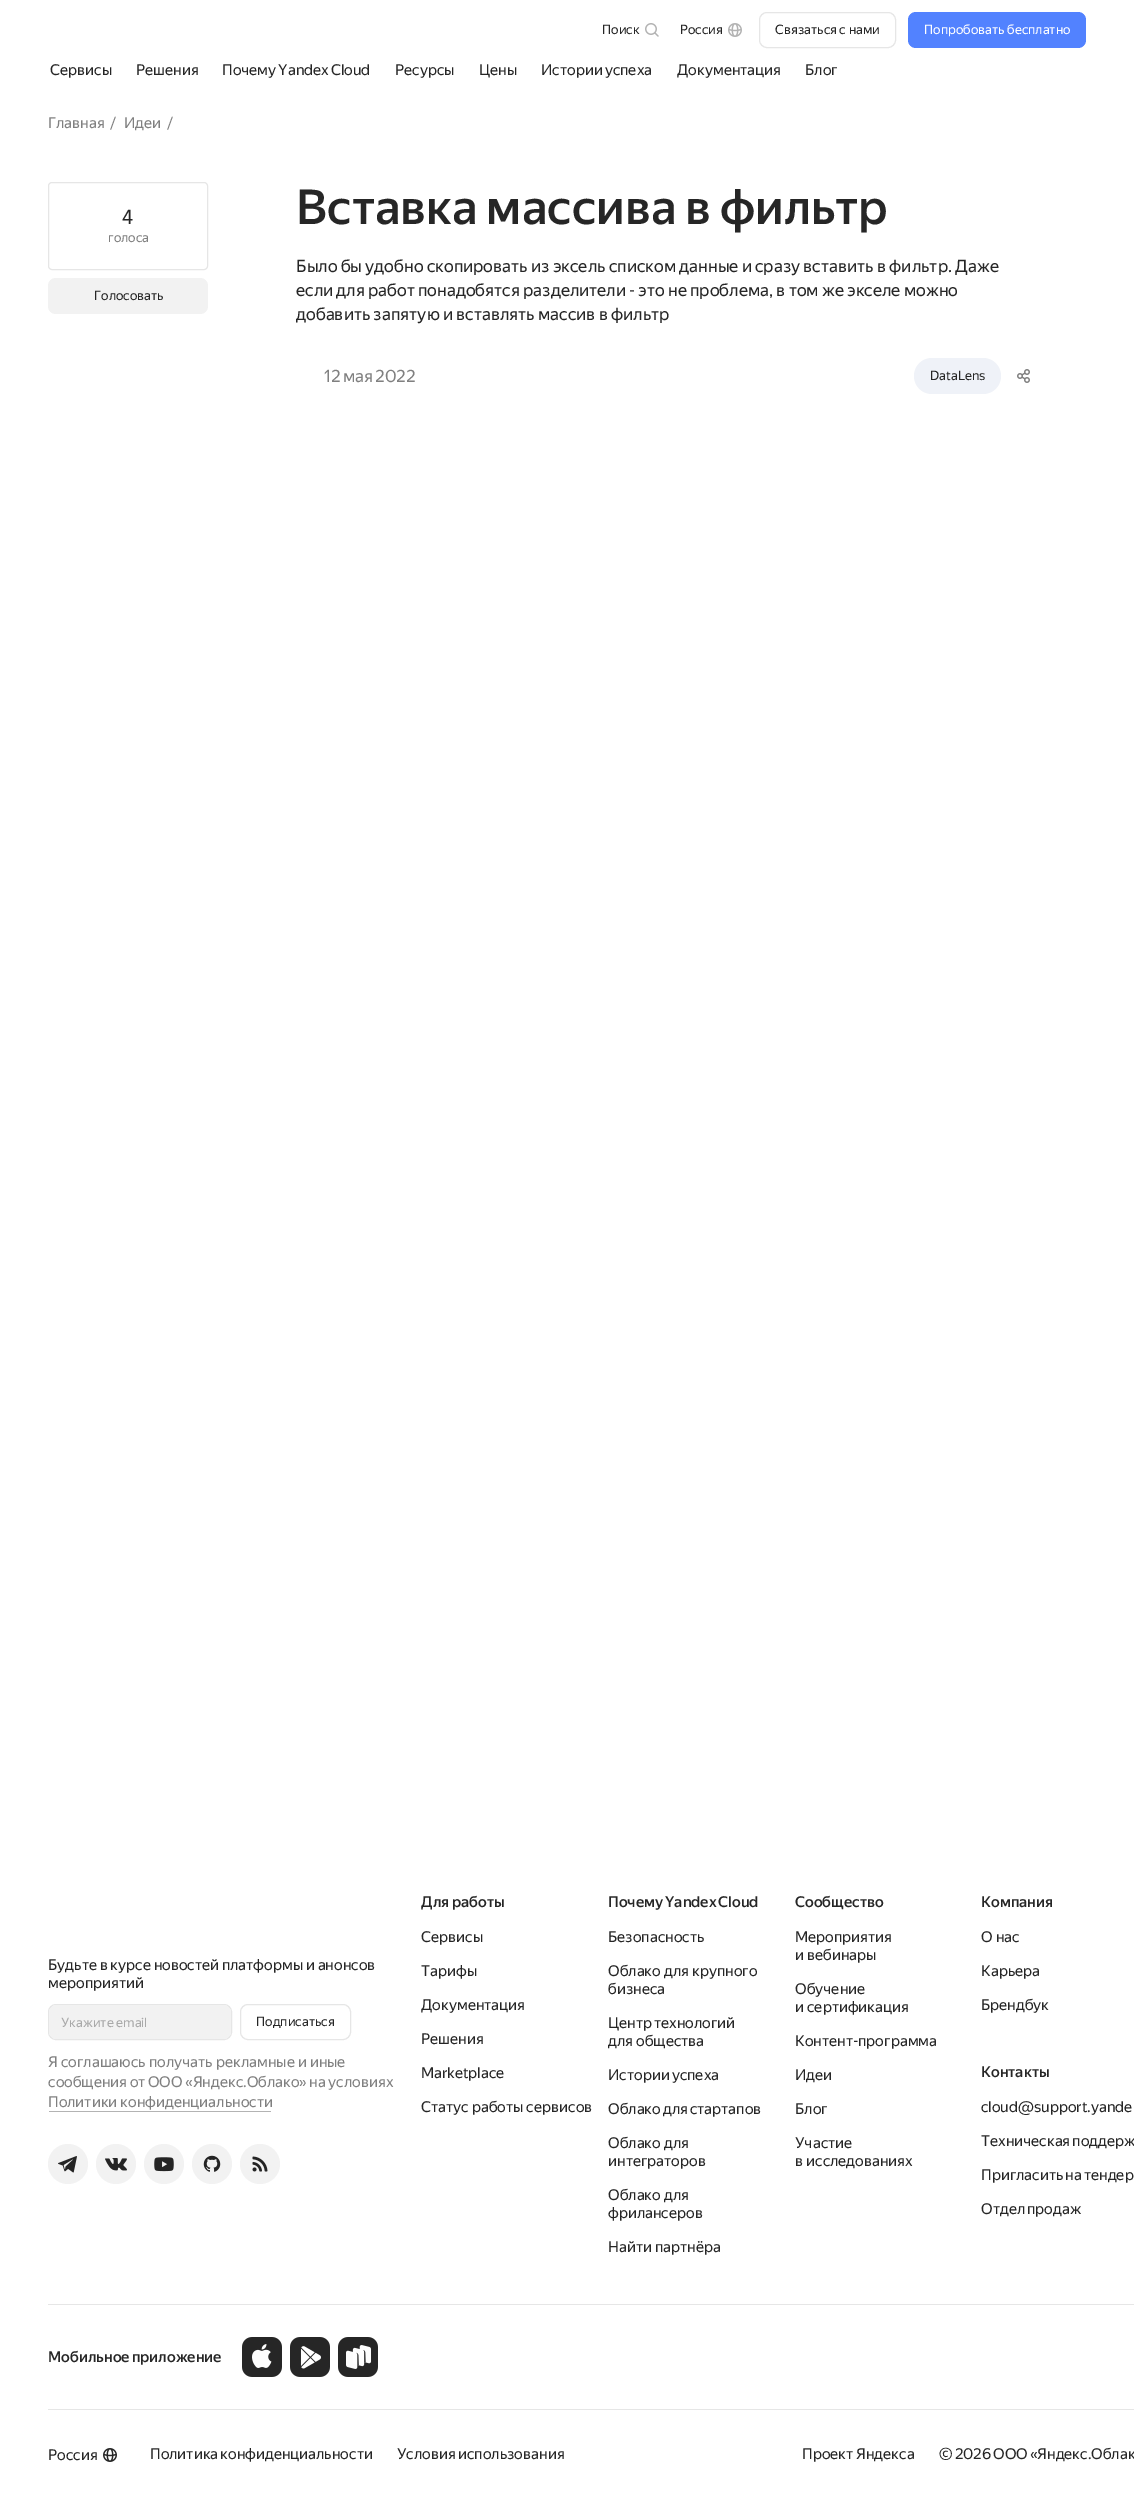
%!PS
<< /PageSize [1134 2498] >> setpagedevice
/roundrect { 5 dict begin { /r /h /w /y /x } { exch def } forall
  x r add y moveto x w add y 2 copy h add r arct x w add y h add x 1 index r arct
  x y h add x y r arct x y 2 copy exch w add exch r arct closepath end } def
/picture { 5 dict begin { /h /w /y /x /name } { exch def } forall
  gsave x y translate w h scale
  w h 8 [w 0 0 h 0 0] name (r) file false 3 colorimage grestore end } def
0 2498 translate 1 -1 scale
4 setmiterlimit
1 setgray
0 0 1134 2498 rectfill
/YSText-Regular [13 0 0 -13 0 0] selectfont
0.149 setgray
602 34 moveto (Поиск) show
(img1.rgb) 645 23 14 14 picture
680 34 moveto (Россия) show
(img2.rgb) 728 23 14 14 picture
0.902 setgray
759.5 12.5 136 35 7.5 roundrect stroke
0.149 setgray
775 34 moveto (Связаться с нами) show
0.322 0.51 1 setrgbcolor
908 12 178 36 8 roundrect fill
1 setgray
924 34 moveto (Попробовать бесплатно) show
/YSText-Regular [15 0 0 -15 0 0] selectfont
0.149 setgray
50 75 moveto (Сервисы) show
136 75 moveto (Решения) show
222 75 moveto -1 0 32 (Почему Yandex Cloud) widthshow
395 75 moveto (Ресурсы) show
479 75 moveto (Цены) show
541 75 moveto -1 0 32 (Истории успеха) widthshow
677 75 moveto (Документация) show
805 75 moveto (Блог) show
0.502 setgray
48 128 moveto (Главная) show
110 128 moveto (/) show
124 128 moveto (Идеи) show
167 128 moveto (/) show
0.902 setgray
48.5 182.5 159 87 3.5 roundrect stroke
/YSText-Regular [20 0 0 -20 0 0] selectfont
0.149 setgray
122 224 moveto (4) show
/YSText-Regular [13 0 0 -13 0 0] selectfont
0.502 setgray
108 242 moveto (голоса) show
0.949 setgray
48 278 160 36 8 roundrect fill
0.149 setgray
94 300 moveto (Голосовать) show
/YSText-Medium [48 0 0 -48 0 0] selectfont
296 224 moveto -1 0 32 (Вставка массива в фильтр) widthshow
/YSText-Regular [17 0 0 -17 0 0] selectfont
296 272 moveto -0.25 0 32 (Было бы удобно скопировать из эксель списком данные и сразу вставить в фильтр. Даже) widthshow
296 296 moveto -0.25 0 32 (если для работ понадобятся разделители - это не проблема, в том же экселе можно) widthshow
296 320 moveto -0.25 0 32 (добавить запятую и вставлять массив в фильтр) widthshow
/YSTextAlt-Regular [17 0 0 -17 0 0] selectfont
0.502 setgray
324 382 moveto -1 0 32 (12 мая 2022) widthshow
0.937 0.949 0.973 setrgbcolor
914 358 87 36 18 roundrect fill
/YSText-Regular [13 0 0 -13 0 0] selectfont
0.149 setgray
930 380 moveto (DataLens) show
(img3.rgb) 1017 369 13 14 picture
/YSText-Regular [15 0 0 -15 0 0] selectfont
48 1970 moveto -0.25 0 32 (Будьте в курсе новостей платформы и анонсов) widthshow
48 1988 moveto (мероприятий) show
0.902 setgray
48.5 2004.5 183 35 7.5 roundrect stroke
gsave
49 2005 182 34 7 roundrect clip newpath
0.949 setgray
49 2005 182 34 8 roundrect fill
grestore
/YSText-Regular [13 0 0 -13 0 0] selectfont
0.663 setgray
61 2027 moveto (Укажите email) show
0.902 setgray
240.5 2004.5 110 35 7.5 roundrect stroke
0.149 setgray
256 2026 moveto (Подписаться) show
/YSText-Regular [15 0 0 -15 0 0] selectfont
0.502 setgray
48 2067 moveto (Я соглашаюсь получать рекламные и иные) show
48 2087 moveto -0.5 0 32 (сообщения от ООО «Яндекс.Облако» на условиях) widthshow
48 2107 moveto (Политики конфиденциальности) show
0.702 setgray
49 2111 222 1 rectfill
0.949 setgray
newpath 68 2164 20 0 360 arc closepath fill
(img4.rgb) 58 2156 19 17 picture
newpath 116 2164 20 0 360 arc closepath fill
(img5.rgb) 105 2158 22 13 picture
newpath 164 2164 20 0 360 arc closepath fill
(img6.rgb) 154 2157 20 15 picture
newpath 212 2164 20 0 360 arc closepath fill
(img7.rgb) 203 2155 18 17 picture
newpath 260 2164 20 0 360 arc closepath fill
(img8.rgb) 252 2156 16 16 picture
/YSText-Medium [15 0 0 -15 0 0] selectfont
0.149 setgray
421 1907 moveto (Для работы) show
/YSText-Regular [15 0 0 -15 0 0] selectfont
421 1942 moveto (Сервисы) show
421 1976 moveto (Тарифы) show
421 2010 moveto (Документация) show
421 2044 moveto (Решения) show
421 2078 moveto (Marketplace) show
421 2112 moveto (Статус работы сервисов) show
/YSText-Medium [15 0 0 -15 0 0] selectfont
608 1907 moveto -1 0 32 (Почему Yandex Cloud) widthshow
/YSText-Regular [15 0 0 -15 0 0] selectfont
608 1942 moveto (Безопасность) show
608 1976 moveto (Облако для крупного) show
608 1994 moveto (бизнеса) show
608 2028 moveto -1 0 32 (Центр технологий) widthshow
608 2046 moveto (для общества) show
608 2080 moveto -1 0 32 (Истории успеха) widthshow
608 2114 moveto -1 0 32 (Облако для стартапов) widthshow
608 2148 moveto (Облако для) show
608 2166 moveto (интеграторов) show
608 2200 moveto (Облако для) show
608 2218 moveto (фрилансеров) show
608 2252 moveto (Найти партнёра) show
/YSText-Medium [15 0 0 -15 0 0] selectfont
795 1907 moveto (Сообщество) show
/YSText-Regular [15 0 0 -15 0 0] selectfont
795 1942 moveto (Мероприятия) show
795 1960 moveto (и вебинары) show
795 1994 moveto (Обучение) show
795 2012 moveto (и сертификация) show
795 2046 moveto (Контент-программа) show
795 2080 moveto (Идеи) show
795 2114 moveto (Блог) show
795 2148 moveto (Участие) show
795 2166 moveto (в исследованиях) show
/YSText-Medium [15 0 0 -15 0 0] selectfont
981 1907 moveto (Компания) show
/YSText-Regular [15 0 0 -15 0 0] selectfont
981 1942 moveto (О нас) show
981 1976 moveto (Карьера) show
981 2010 moveto (Брендбук) show
/YSText-Medium [15 0 0 -15 0 0] selectfont
981 2077 moveto (Контакты) show
/YSText-Regular [15 0 0 -15 0 0] selectfont
981 2112 moveto (cloud@support.yande) show
981 2146 moveto -1 0 32 (Техническая поддерж) widthshow
981 2180 moveto -1 0 32 (Пригласить на тендер) widthshow
981 2214 moveto -1 0 32 (Отдел продаж) widthshow
0.902 setgray
48 2304 1086 1 rectfill
/YSText-Medium [15 0 0 -15 0 0] selectfont
0.149 setgray
48 2362 moveto -1 0 32 (Мобильное приложение) widthshow
(img9.rgb) 242 2337 40 40 picture
(img10.rgb) 290 2337 40 40 picture
(img11.rgb) 338 2337 40 40 picture
0.902 setgray
48 2409 1086 1 rectfill
/YSText-Regular [15 0 0 -15 0 0] selectfont
0.149 setgray
48 2460 moveto (Россия) show
(img12.rgb) 103 2448 14 14 picture
150 2459 moveto -1 0 32 (Политика конфиденциальности) widthshow
397 2459 moveto -1 0 32 (Условия использования) widthshow
802 2459 moveto (Проект Яндекса) show
/YSTextAlt-Regular [15 0 0 -15 0 0] selectfont
939 2459 moveto -1 0 32 (© 2026 ООО «Яндекс.Облак) widthshow
showpage
